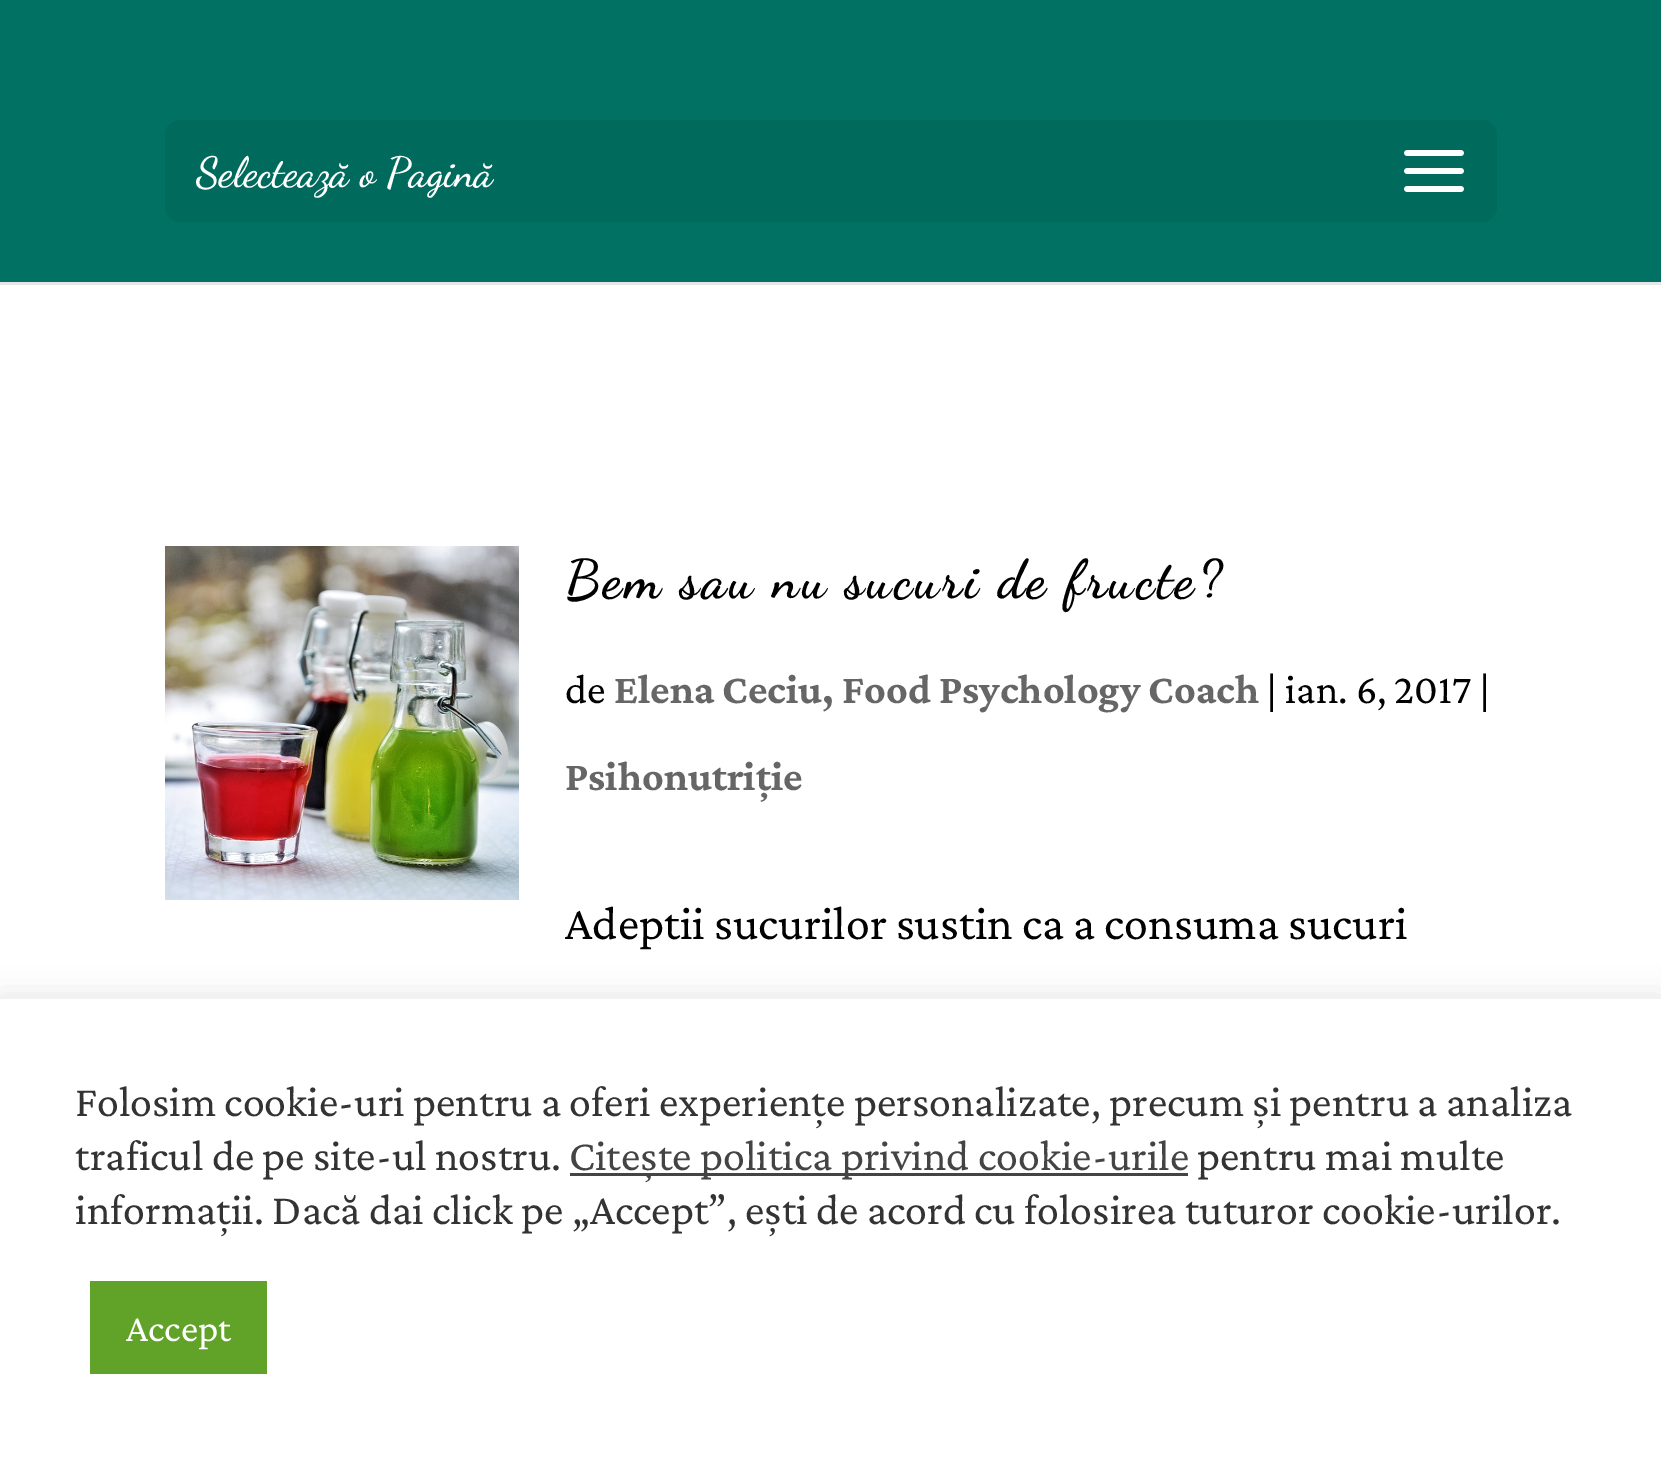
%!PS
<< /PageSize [1661 1463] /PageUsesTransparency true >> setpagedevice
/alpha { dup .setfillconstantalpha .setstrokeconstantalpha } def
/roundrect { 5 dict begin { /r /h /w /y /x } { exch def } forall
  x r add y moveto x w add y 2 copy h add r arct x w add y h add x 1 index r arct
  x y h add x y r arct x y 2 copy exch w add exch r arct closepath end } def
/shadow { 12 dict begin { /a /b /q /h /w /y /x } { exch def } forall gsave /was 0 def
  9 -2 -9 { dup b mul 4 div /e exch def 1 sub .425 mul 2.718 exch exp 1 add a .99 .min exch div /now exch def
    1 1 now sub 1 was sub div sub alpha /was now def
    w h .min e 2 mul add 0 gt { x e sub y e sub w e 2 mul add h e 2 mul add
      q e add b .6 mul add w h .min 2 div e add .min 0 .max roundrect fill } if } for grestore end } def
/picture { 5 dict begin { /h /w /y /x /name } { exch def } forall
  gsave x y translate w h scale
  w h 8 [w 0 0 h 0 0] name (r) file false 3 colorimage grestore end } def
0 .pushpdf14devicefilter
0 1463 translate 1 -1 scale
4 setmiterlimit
1 setgray
0 0 1661 1463 rectfill
0.902 setgray
0 282 1661 3 rectfill
0 0.443 0.384 setrgbcolor
0 0 1661 282 rectfill
0 0.42 0.365 setrgbcolor
165 120 1332 102 15 roundrect fill
/DancingScript-SemiBold [42 0 0 -42 0 0] selectfont
1 setgray
196 186 moveto (Selectează o Pagină) show
(img1.rgb) 1404 150 60 42 picture
(img2.rgb) 165 546 354 354 picture
/DancingScript-Bold [54 0 0 -54 0 0] selectfont
0 setgray
565 597 moveto 3 0 (Bem sau nu sucuri de fructe?) ashow
/CrimsonPro-Regular [42 0 0 -42 0 0] selectfont
565 703 moveto (de) show
/CrimsonPro-Bold [42 0 0 -42 0 0] selectfont
0.4 setgray
614 703 moveto (Elena Ceciu, Food Psychology Coach) show
/CrimsonPro-Regular [42 0 0 -42 0 0] selectfont
0 setgray
1266 703 moveto (| ian. 6, 2017 |) show
/CrimsonPro-Bold [42 0 0 -42 0 0] selectfont
0.4 setgray
565 790 moveto (Psihonutriție) show
/CrimsonPro-Regular [48 0 0 -48 0 0] selectfont
0 setgray
565 939 moveto (Adeptii sucurilor sustin ca a consuma sucuri) show
0.675 0.671 0.671 setrgbcolor
0 996 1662 465 0 15 0.3 shadow
1 setgray
0 999 1661 464 rectfill
/CrimsonPro-Regular [44 0 0 -44 0 0] selectfont
0.2 setgray
75 1116 moveto (Folosim cookie-uri pentru a oferi experiențe personalizate, precum și pentru a analiza) show
75 1170 moveto (traficul de pe site-ul nostru.) show
0.267 setgray
570 1173 618 3 rectfill
569 1170 moveto (Citește politica privind cookie-urile) show
0.2 setgray
1197 1170 moveto (pentru mai multe) show
75 1224 moveto (informații. Dacă dai click pe „Accept”, ești de acord cu folosirea tuturor cookie-urilor.) show
0.38 0.635 0.161 setrgbcolor
90 1281 177 93 rectfill
/CrimsonPro-Regular [39 0 0 -39 0 0] selectfont
1 setgray
126 1341 moveto (Accept) show
.poppdf14devicefilter showpage
